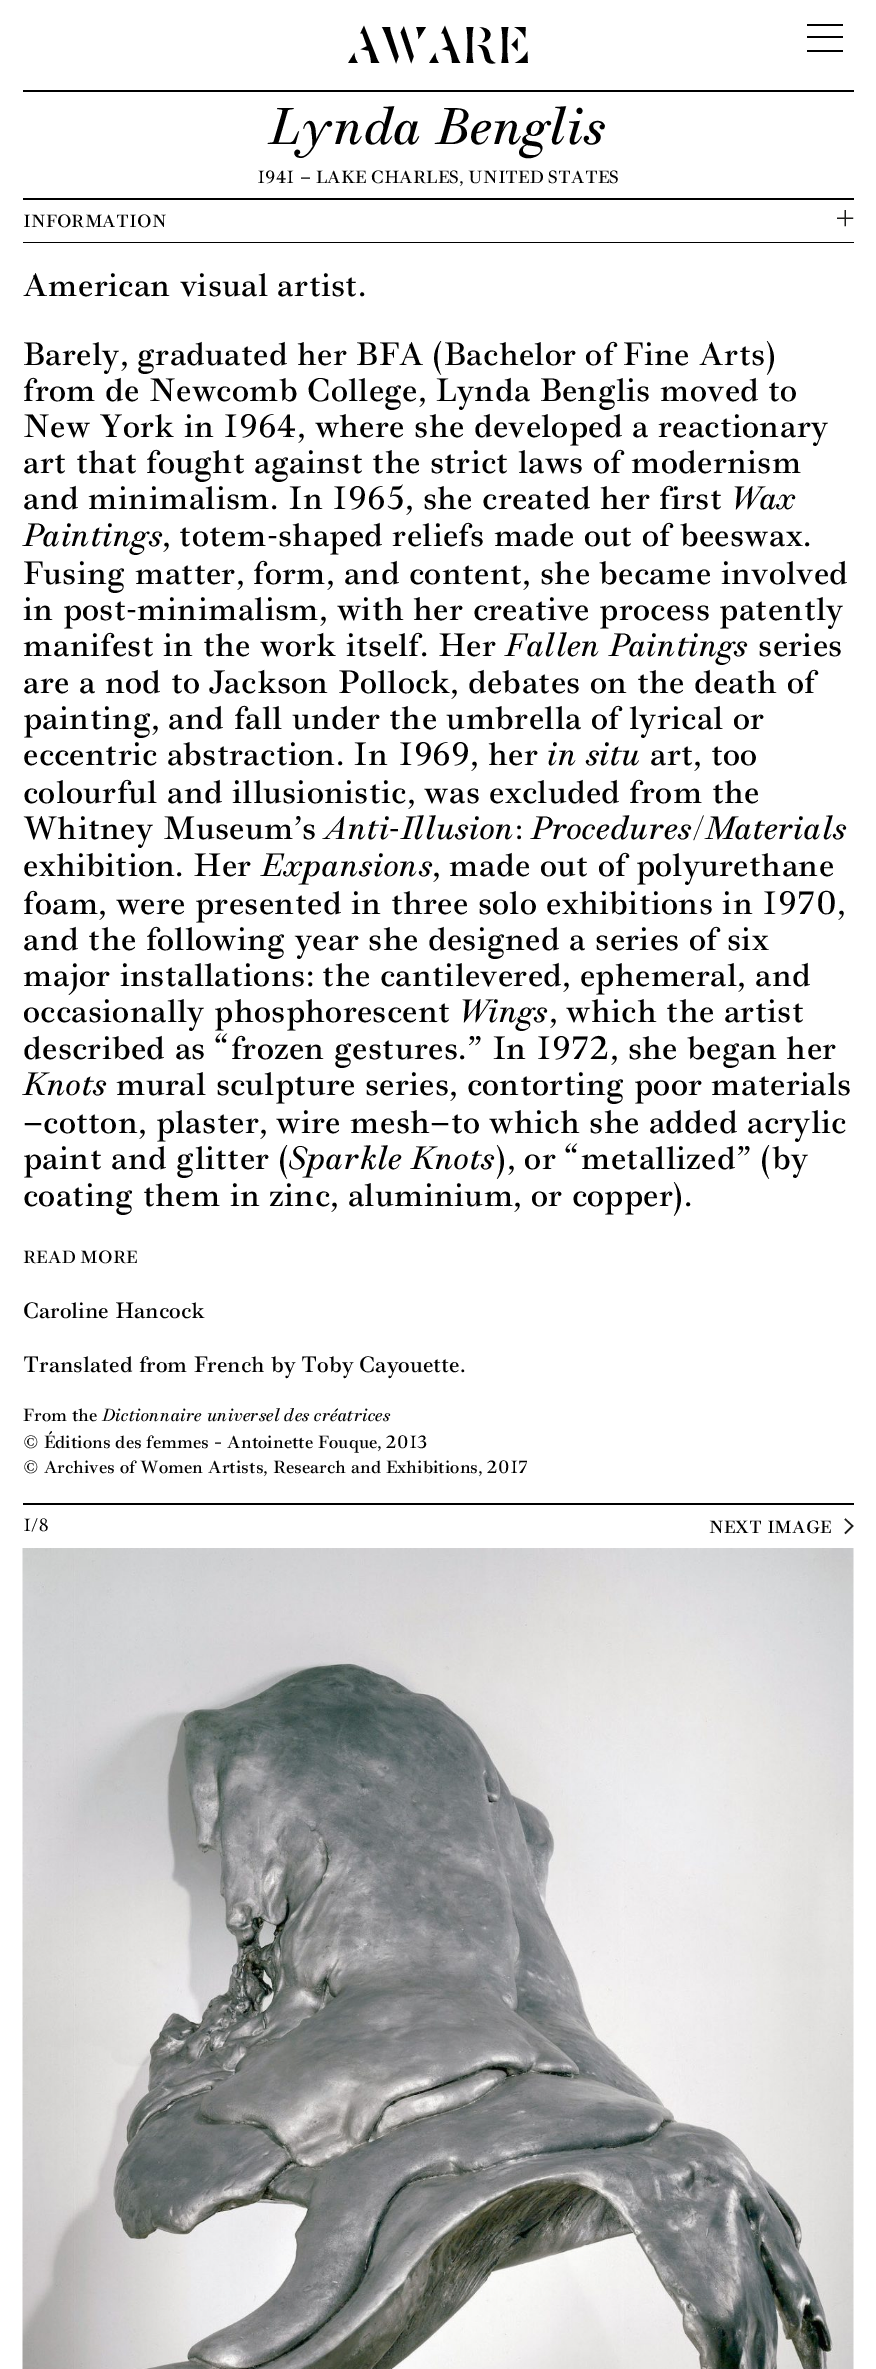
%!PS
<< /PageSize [876 2369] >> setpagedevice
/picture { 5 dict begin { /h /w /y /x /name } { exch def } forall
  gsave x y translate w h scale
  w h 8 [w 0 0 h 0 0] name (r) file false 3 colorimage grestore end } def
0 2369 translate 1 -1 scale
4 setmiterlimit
1 setgray
0 0 876 2369 rectfill
0 setgray
23 90 831 2 rectfill
/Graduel-ExtraLight [52.5 0 0 -52.5 0 0] selectfont
346 63 moveto (AWARE) show
807 24 36 2 rectfill
807 50 36 2 rectfill
807 36 36 2 rectfill
/Graduel-Italic [52.5 0 0 -52.5 0 0] selectfont
269 144 moveto 2.1 0 (Lynda Benglis) ashow
23 198 831 2 rectfill
/Graduel-Regular [18 0 0 -18 0 0] selectfont
257 183 moveto (1941 — LAKE CHARLES, UNITED STATES) show
23 242 831 1 rectfill
23 227 moveto (INFORMATION) show
(img1.rgb) 837 210 17 17 picture
/Graduel-Regular [33 0 0 -33 0 0] selectfont
23 296 moveto 0.3 0 (American visual artist.) ashow
23 365 moveto 0.3 0 (Barely, graduated her BFA \(Bachelor of Fine Arts\)) ashow
23 401 moveto 0.3 0 (from de Newcomb College, Lynda Benglis moved to) ashow
23 437 moveto 0.3 0 (New York in 1964, where she developed a reactionary) ashow
23 473 moveto 0.3 0 (art that fought against the strict laws of modernism) ashow
23 509 moveto 0.3 0 (and minimalism. In 1965, she created her first) ashow
/Graduel-Italic [33 0 0 -33 0 0] selectfont
731 509 moveto 1.3 0 (Wax) ashow
23 546 moveto 1.3 0 (Paintings) ashow
/Graduel-Regular [33 0 0 -33 0 0] selectfont
162 546 moveto 0.3 0 (, totem-shaped reliefs made out of beeswax.) ashow
23 584 moveto 0.3 0 (Fusing matter, form, and content, she became involved) ashow
23 620 moveto 0.3 0 (in post-minimalism, with her creative process patently) ashow
23 656 moveto 0.3 0 (manifest in the work itself. Her) ashow
/Graduel-Italic [33 0 0 -33 0 0] selectfont
505 656 moveto 1.3 0 (Fallen Paintings) ashow
/Graduel-Regular [33 0 0 -33 0 0] selectfont
758 656 moveto 0.3 0 (series) ashow
23 693 moveto 0.3 0 (are a nod to Jackson Pollock, debates on the death of) ashow
23 729 moveto 0.3 0 (painting, and fall under the umbrella of lyrical or) ashow
23 765 moveto 0.3 0 (eccentric abstraction. In 1969, her) ashow
/Graduel-Italic [33 0 0 -33 0 0] selectfont
547 765 moveto 1.3 0 (in situ) ashow
/Graduel-Regular [33 0 0 -33 0 0] selectfont
650 765 moveto 0.3 0 (art, too) ashow
23 803 moveto 0.3 0 (colourful and illusionistic, was excluded from the) ashow
23 839 moveto 0.3 0 (Whitney Museum’s) ashow
/Graduel-Italic [33 0 0 -33 0 0] selectfont
325 839 moveto 1.3 0 (Anti-Illusion: Procedures/Materials) ashow
/Graduel-Regular [33 0 0 -33 0 0] selectfont
23 876 moveto 0.3 0 (exhibition. Her) ashow
/Graduel-Italic [33 0 0 -33 0 0] selectfont
261 876 moveto 1.3 0 (Expansions) ashow
/Graduel-Regular [33 0 0 -33 0 0] selectfont
432 876 moveto 0.3 0 (, made out of polyurethane) ashow
23 914 moveto 0.3 0 (foam, were presented in three solo exhibitions in 1970,) ashow
23 950 moveto 0.3 0 (and the following year she designed a series of six) ashow
23 986 moveto 0.3 0 (major installations: the cantilevered, ephemeral, and) ashow
23 1022 moveto 0.3 0 (occasionally phosphorescent) ashow
/Graduel-Italic [33 0 0 -33 0 0] selectfont
459 1022 moveto 1.3 0 (Wings) ashow
/Graduel-Regular [33 0 0 -33 0 0] selectfont
549 1022 moveto 0.3 0 (, which the artist) ashow
23 1059 moveto 0.3 0 (described as “frozen gestures.” In 1972, she began her) ashow
/Graduel-Italic [33 0 0 -33 0 0] selectfont
23 1095 moveto 1.3 0 (Knots) ashow
/Graduel-Regular [33 0 0 -33 0 0] selectfont
116 1095 moveto 0.3 0 (mural sculpture series, contorting poor materials) ashow
23 1133 moveto 0.3 0 (—cotton, plaster, wire mesh—to which she added acrylic) ashow
23 1169 moveto 0.3 0 (paint and glitter \() ashow
/Graduel-Italic [33 0 0 -33 0 0] selectfont
289 1169 moveto 1.3 0 (Sparkle Knots) ashow
/Graduel-Regular [33 0 0 -33 0 0] selectfont
496 1169 moveto 0.3 0 (\), or “metallized” \(by) ashow
23 1206 moveto 0.3 0 (coating them in zinc, aluminium, or copper\).) ashow
/Graduel-Regular [18 0 0 -18 0 0] selectfont
23 1263 moveto (READ MORE) show
/Graduel-Regular [22.5 0 0 -22.5 0 0] selectfont
23 1318 moveto (Caroline Hancock) show
23 1372 moveto (Translated from French by Toby Cayouette.) show
/Graduel-Regular [18 0 0 -18 0 0] selectfont
23 1421 moveto (From the) show
/Graduel-Italic [18 0 0 -18 0 0] selectfont
102 1421 moveto 0.7 0 (Dictionnaire universel des créatrices) ashow
/Graduel-Regular [18 0 0 -18 0 0] selectfont
23 1448 moveto (© Éditions des femmes – Antoinette Fouque, 2013) show
23 1473 moveto (© Archives of Women Artists, Research and Exhibitions, 2017) show
23 1503 831 2 rectfill
23 1531 moveto (1/8) show
709 1533 moveto (NEXT IMAGE) show
0.114 0.114 0.106 setrgbcolor
1.5 setlinewidth
newpath 845 1533.5 moveto 852.5 1526 lineto 845 1519 lineto stroke
(img2.rgb) 22 1548 832 821 picture
showpage
